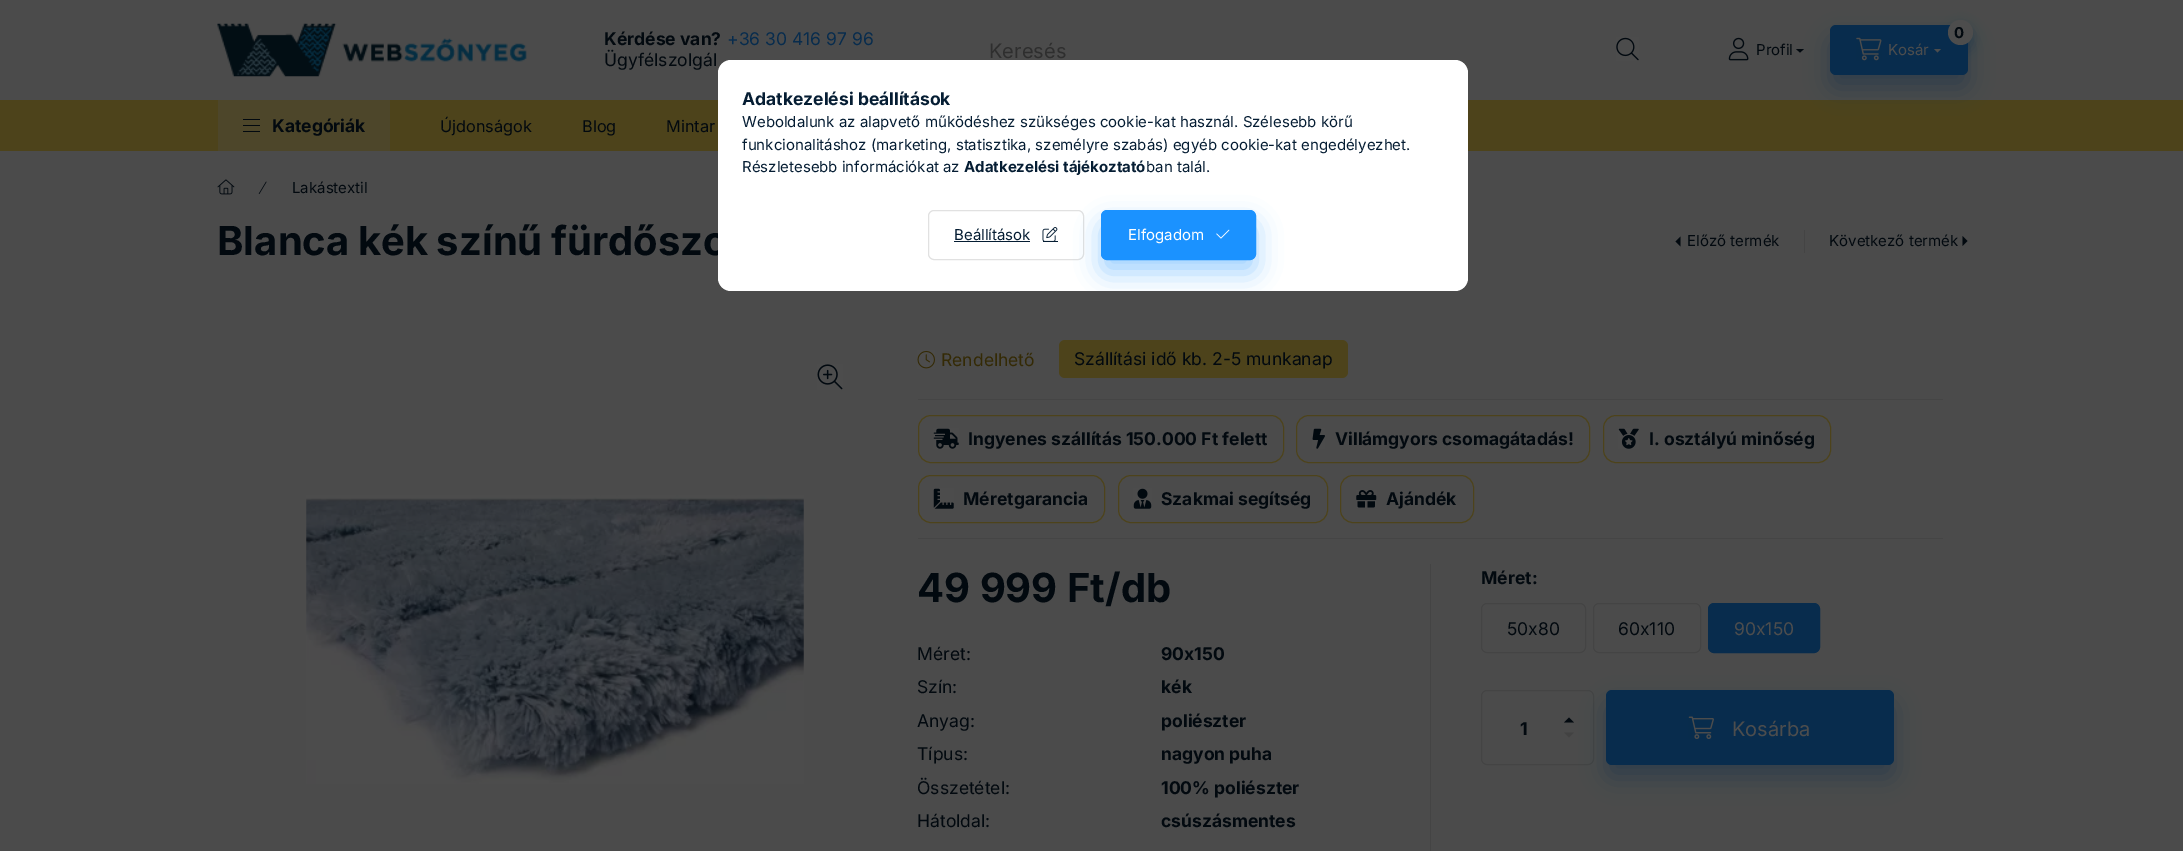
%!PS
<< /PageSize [2183 851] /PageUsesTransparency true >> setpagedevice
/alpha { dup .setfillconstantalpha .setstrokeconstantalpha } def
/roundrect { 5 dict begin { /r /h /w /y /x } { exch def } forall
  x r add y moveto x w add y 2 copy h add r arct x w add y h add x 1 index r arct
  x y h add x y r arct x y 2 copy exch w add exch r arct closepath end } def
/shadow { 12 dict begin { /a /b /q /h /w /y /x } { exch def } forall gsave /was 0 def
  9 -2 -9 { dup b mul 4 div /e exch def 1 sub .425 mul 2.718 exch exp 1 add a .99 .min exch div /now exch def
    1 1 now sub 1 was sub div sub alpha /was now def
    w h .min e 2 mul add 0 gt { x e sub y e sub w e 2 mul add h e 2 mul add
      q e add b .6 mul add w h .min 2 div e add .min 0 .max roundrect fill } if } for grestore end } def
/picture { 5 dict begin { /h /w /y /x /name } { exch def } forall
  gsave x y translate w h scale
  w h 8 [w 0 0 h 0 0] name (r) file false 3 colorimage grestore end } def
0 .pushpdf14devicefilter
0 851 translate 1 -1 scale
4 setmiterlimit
0.294 setgray
0 0 2183 851 rectfill
(img1.rgb) 217 23 310 54 picture
/Inter-Bold [17.5 0 0 -17.5 0 0] selectfont
0.008 0.035 0.059 setrgbcolor
604 45 moveto (Kérdése van?) show
/Inter-Regular [17.5 0 0 -17.5 0 0] selectfont
0.031 0.173 0.302 setrgbcolor
727 45 moveto (+36 30 416 97 96) show
0.008 0.035 0.059 setrgbcolor
604 66 moveto (Ügyfélszolgál) show
/Inter-Regular [20 0 0 -20 0 0] selectfont
0.18 setgray
989 58 moveto (Keresés) show
(img2.rgb) 1616 37 23 24 picture
(img3.rgb) 1728 37 21 24 picture
0.302 0.263 0.106 setrgbcolor
0 100 2183 51 rectfill
0.031 0.173 0.302 setrgbcolor
1830 38 138 50 6 12.5 0.4 shadow
/Inter-Regular [15 0 0 -15 0 0] selectfont
0.008 0.035 0.059 setrgbcolor
1756 55 moveto (Profil) show
newpath 1796 49 moveto 1804 49 lineto 1800 52.5 lineto closepath fill
0.031 0.173 0.302 setrgbcolor
1830 25 138 50 6 roundrect fill
1948 26 25 25 12.5 6 0.4 shadow
0.302 setgray
newpath 1960.5 32.5 12.5 0 360 arc closepath fill
/Inter-Bold [15 0 0 -15 0 0] selectfont
0.008 0.035 0.059 setrgbcolor
1954 38 moveto (0) show
(img4.rgb) 1856 37 26 24 picture
/Inter-Regular [15 0 0 -15 0 0] selectfont
0.302 setgray
1888 55 moveto (Kosár) show
newpath 1934 49 moveto 1941 49 lineto 1937.5 52.5 lineto closepath fill
0.302 0.275 0.165 setrgbcolor
218 100 172 51 rectfill
0.008 0.035 0.059 setrgbcolor
243 119 17 1 rectfill
243 125 17 1 rectfill
243 131 17 1 rectfill
/Inter-Bold [17.5 0 0 -17.5 0 0] selectfont
272 132 moveto (Kategóriák) show
/Inter-Regular [16.25 0 0 -16.25 0 0] selectfont
440 132 moveto (Újdonságok) show
582 132 moveto (Blog) show
666 132 moveto (Mintar) show
(img5.rgb) 217 179 18 16 picture
(img6.rgb) 258 181 9 13 picture
/Inter-Regular [15 0 0 -15 0 0] selectfont
292 193 moveto (Lakástextil) show
/Inter-Bold [40 0 0 -40 0 0] selectfont
217 255 moveto -1 0 32 (Blanca kék színű fürdőszo) widthshow
newpath 1680.5 246.5 moveto 1680.5 236.5 lineto 1675.5 241.5 lineto closepath fill
/Inter-Regular [15 0 0 -15 0 0] selectfont
1687 246 moveto (Előző termék) show
0.267 setgray
1804 230 1 23 rectfill
0.008 0.035 0.059 setrgbcolor
1829 246 moveto (Következő termék) show
newpath 1962.5 246 moveto 1962.5 236 lineto 1967.5 241 lineto closepath fill
(img7.rgb) 817 364 26 26 picture
(img8.rgb) 306 495 498 289 picture
(img9.rgb) 917 350 18 19 picture
/Inter-Regular [17.5 0 0 -17.5 0 0] selectfont
0.204 0.165 0.02 setrgbcolor
941 366 moveto (Rendelhető) show
0.302 0.263 0.106 setrgbcolor
1059 340 289 38 6 roundrect fill
0.008 0.035 0.059 setrgbcolor
1074 365 moveto (Szállítási idő kb. 2-5 munkanap) show
0.271 setgray
918 399 1025 1 rectfill
0.302 0.263 0.106 setrgbcolor
918.5 415.5 365 47 12.5 roundrect stroke
(img10.rgb) 933 428 26 21 picture
/Inter-Bold [17.5 0 0 -17.5 0 0] selectfont
0.008 0.035 0.059 setrgbcolor
968 445 moveto (Ingyenes szállítás 150.000 Ft felett) show
0.302 0.263 0.106 setrgbcolor
1296.5 415.5 293 47 12.5 roundrect stroke
(img11.rgb) 1312 428 13 21 picture
0.008 0.035 0.059 setrgbcolor
1335 445 moveto (Villámgyors csomagátadás!) show
0.302 0.263 0.106 setrgbcolor
1603.5 415.5 227 47 12.5 roundrect stroke
(img12.rgb) 1618 428 21 21 picture
0.008 0.035 0.059 setrgbcolor
1649 445 moveto (I. osztályú minőség) show
0.302 0.263 0.106 setrgbcolor
918.5 475.5 186 47 12.5 roundrect stroke
(img13.rgb) 933 488 21 21 picture
0.008 0.035 0.059 setrgbcolor
963 505 moveto (Méretgarancia) show
0.302 0.263 0.106 setrgbcolor
1118.5 475.5 209 47 12.5 roundrect stroke
(img14.rgb) 1133 488 19 21 picture
0.008 0.035 0.059 setrgbcolor
1161 505 moveto (Szakmai segítség) show
0.302 0.263 0.106 setrgbcolor
1340.5 475.5 133 47 12.5 roundrect stroke
(img15.rgb) 1356 490 21 18 picture
0.008 0.035 0.059 setrgbcolor
1386 505 moveto (Ajándék) show
0.271 setgray
918 538 1025 1 rectfill
/Inter-Bold [40 0 0 -40 0 0] selectfont
0.008 0.035 0.059 setrgbcolor
917 602 moveto (49 999 Ft/db) show
/Inter-Regular [17.5 0 0 -17.5 0 0] selectfont
917 660 moveto (Méret:) show
/Inter-Bold [17.5 0 0 -17.5 0 0] selectfont
1161 660 moveto (90x150) show
/Inter-Regular [17.5 0 0 -17.5 0 0] selectfont
917 693 moveto (Szín:) show
/Inter-Bold [17.5 0 0 -17.5 0 0] selectfont
1161 693 moveto (kék) show
/Inter-Regular [17.5 0 0 -17.5 0 0] selectfont
917 727 moveto (Anyag:) show
/Inter-Bold [17.5 0 0 -17.5 0 0] selectfont
1161 727 moveto (poliészter) show
/Inter-Regular [17.5 0 0 -17.5 0 0] selectfont
917 760 moveto (Típus:) show
/Inter-Bold [17.5 0 0 -17.5 0 0] selectfont
1161 760 moveto (nagyon puha) show
/Inter-Regular [17.5 0 0 -17.5 0 0] selectfont
917 794 moveto (Összetétel:) show
/Inter-Bold [17.5 0 0 -17.5 0 0] selectfont
1161 794 moveto (100% poliészter) show
/Inter-Regular [17.5 0 0 -17.5 0 0] selectfont
917 827 moveto (Hátoldal:) show
/Inter-Bold [17.5 0 0 -17.5 0 0] selectfont
1161 827 moveto (csúszásmentes) show
0.267 setgray
1430 564 1 287 rectfill
0.008 0.035 0.059 setrgbcolor
1481 584 moveto (Méret:) show
0.267 setgray
1481.5 603.5 104 49 5.5 roundrect stroke
gsave
1508 615 52 26 rectclip
/Inter-Regular [17.5 0 0 -17.5 0 0] selectfont
0.008 0.035 0.059 setrgbcolor
1507 635 moveto (50x80) show
grestore
1593.5 603.5 107 49 5.5 roundrect stroke
gsave
1619 615 56 26 rectclip
/Inter-Regular [17.5 0 0 -17.5 0 0] selectfont
0.008 0.035 0.059 setrgbcolor
1618 635 moveto (60x110) show
grestore
0.031 0.173 0.302 setrgbcolor
1708.5 603.5 111 49 5.5 roundrect gsave fill grestore
stroke
gsave
1734 615 60 26 rectclip
/Inter-Regular [17.5 0 0 -17.5 0 0] selectfont
0.302 setgray
1734 635 moveto (90x150) show
grestore
0.267 setgray
1481.5 690.5 112 74 5.5 roundrect stroke
0.008 0.035 0.059 setrgbcolor
1520 735 moveto (1) show
newpath 1574 722.5 moveto 1564 722.5 lineto 1569 717.5 lineto closepath fill
0.259 setgray
newpath 1564 732.5 moveto 1574 732.5 lineto 1569 737.5 lineto closepath fill
0.031 0.173 0.302 setrgbcolor
1606 703 288 75 6 12.5 0.4 shadow
1606 690 288 75 6 roundrect fill
(img16.rgb) 1688 716 26 23 picture
/Inter-Regular [20 0 0 -20 0 0] selectfont
0.302 setgray
1732 736 moveto (Kosárba) show
1 setgray
718 60 750 231 13 roundrect fill
/Inter-Bold [17.5 0 0 -17.5 0 0] selectfont
0.02 0.114 0.2 setrgbcolor
742 105 moveto (Adatkezelési beállítások) show
/Inter-Regular [15 0 0 -15 0 0] selectfont
742 127 moveto (Weboldalunk az alapvető működéshez szükséges cookie-kat használ. Szélesebb körű) show
742 150 moveto (funkcionalitáshoz \(marketing, statisztika, személyre szabás\) egyéb cookie-kat engedélyezhet.) show
742 172 moveto (Részletesebb információkat az) show
/Inter-Bold [15 0 0 -15 0 0] selectfont
964 172 moveto (Adatkezelési tájékoztató) show
/Inter-Regular [15 0 0 -15 0 0] selectfont
1146 172 moveto (ban talál.) show
0.882 setgray
928.5 210.5 155 49 5.5 roundrect stroke
0.02 0.114 0.2 setrgbcolor
954 240 moveto (Beállítások) show
954 241 76 1 rectfill
(img17.rgb) 1042 227 16 14 picture
1043 241 15 1 rectfill
gsave
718 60 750 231 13 roundrect clip newpath
0.106 0.573 1 setrgbcolor
1101 223 155 50 6 12.5 0.4 shadow
grestore
0.106 0.573 1 setrgbcolor
1101.5 210.5 154 49 5.5 roundrect gsave fill grestore
stroke
1 setgray
1128 240 moveto (Elfogadom) show
(img18.rgb) 1216 229 14 10 picture
.poppdf14devicefilter showpage
